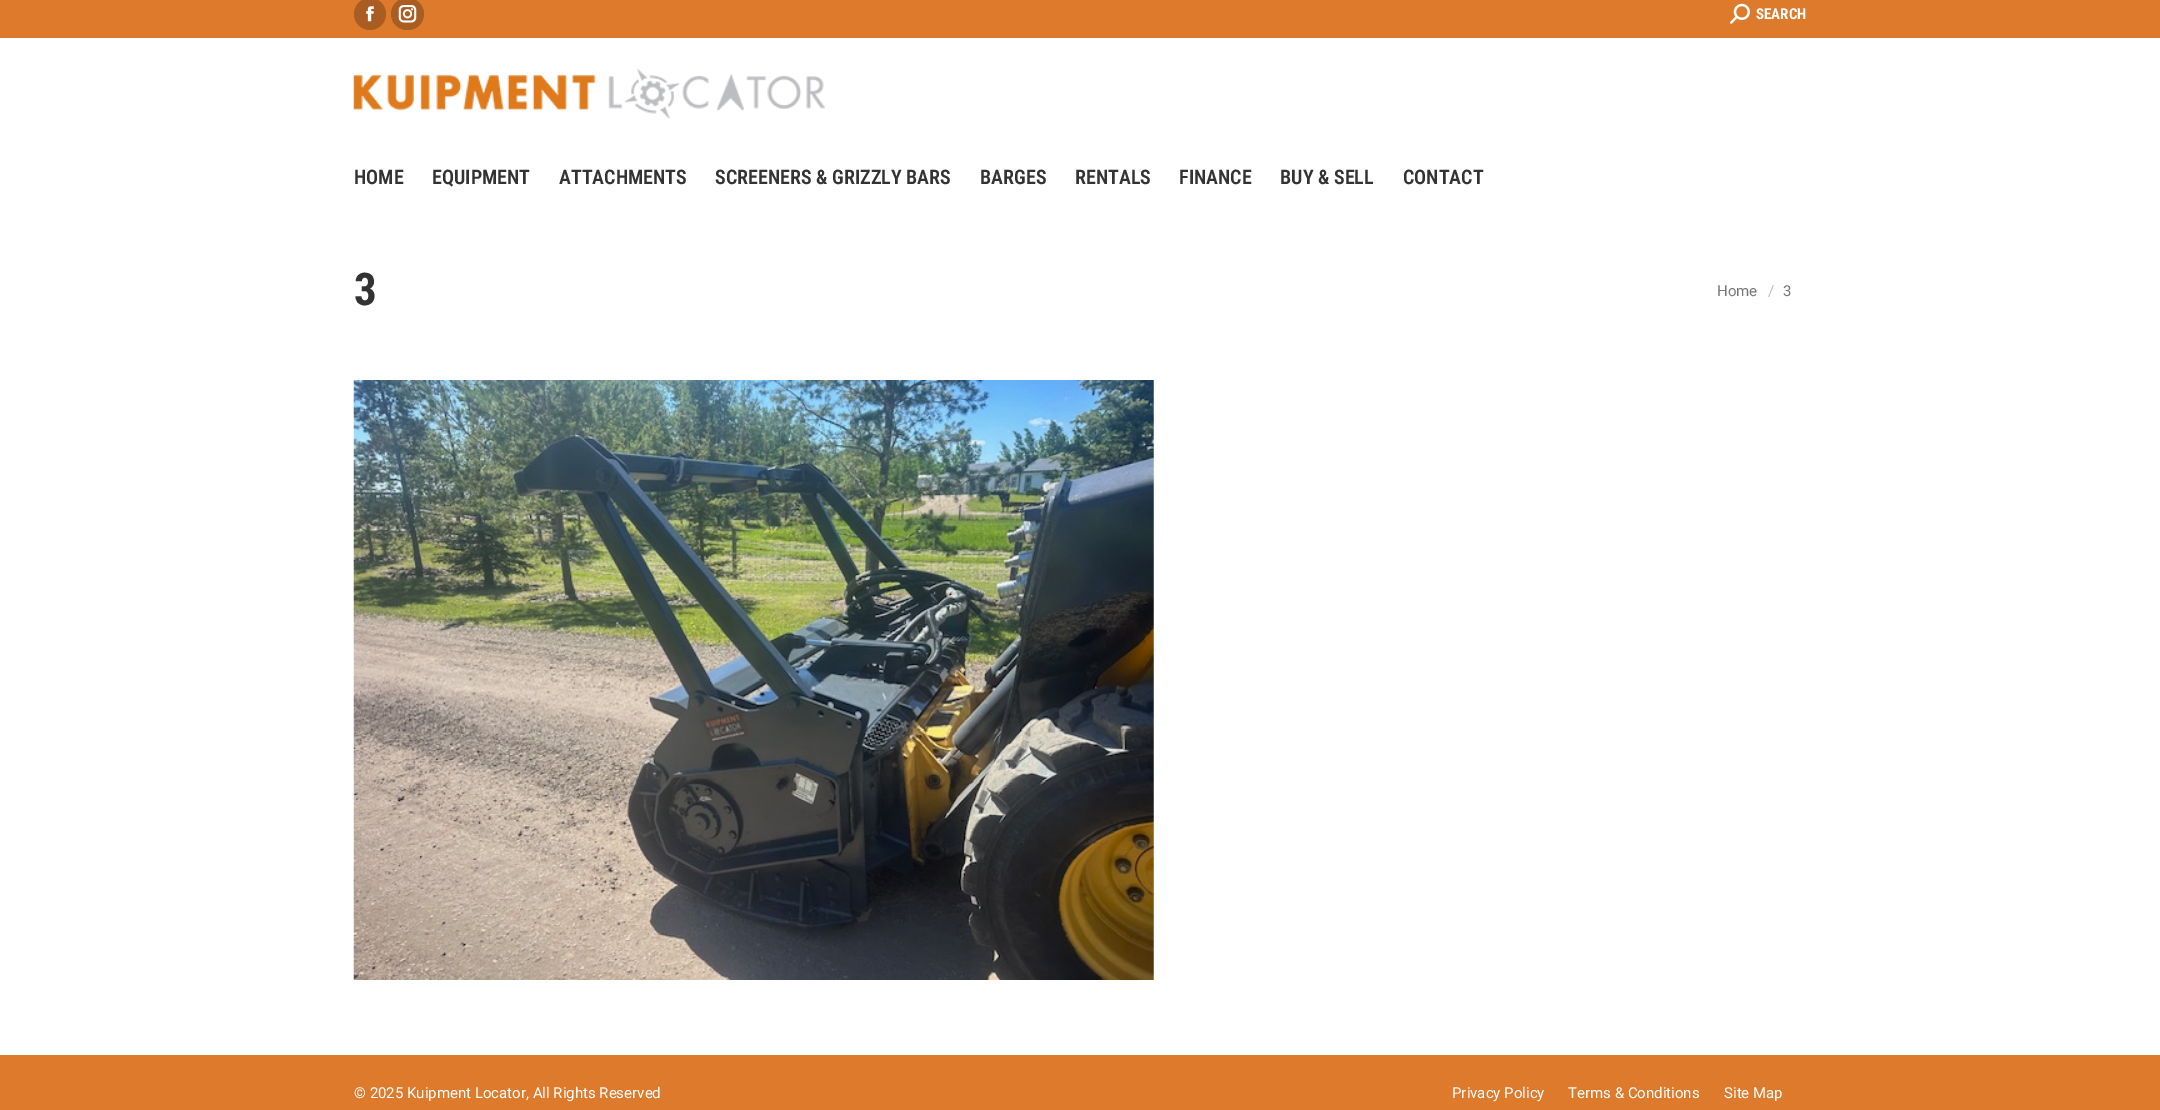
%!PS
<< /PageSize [2160 1110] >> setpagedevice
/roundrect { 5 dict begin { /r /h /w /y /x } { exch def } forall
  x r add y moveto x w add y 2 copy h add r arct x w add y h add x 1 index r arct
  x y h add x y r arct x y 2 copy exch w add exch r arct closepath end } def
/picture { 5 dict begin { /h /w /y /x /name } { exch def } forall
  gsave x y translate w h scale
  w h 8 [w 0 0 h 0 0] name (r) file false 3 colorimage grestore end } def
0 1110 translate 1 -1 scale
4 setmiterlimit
1 setgray
0 0 2160 1110 rectfill
0.867 0.478 0.173 setrgbcolor
0 0 2160 38 rectfill
0.667 0.365 0.133 setrgbcolor
newpath 370 14 16 0 360 arc closepath fill
(img1.rgb) 366 6 8 16 picture
391 -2 33 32 16 roundrect fill
(img2.rgb) 398 5 19 18 picture
(img3.rgb) 1730 3 20 21 picture
/RobotoCondensed-Bold [15 0 0 -15 0 0] selectfont
1 setgray
1756 19 moveto (SEARCH) show
(img4.rgb) 353 69 472 50 picture
/RobotoCondensed-SemiBold [20 0 0 -20 0 0] selectfont
0.2 setgray
354 184 moveto (HOME) show
432 184 moveto (EQUIPMENT) show
559 184 moveto (ATTACHMENTS) show
715 184 moveto (SCREENERS & GRIZZLY BARS) show
980 184 moveto (BARGES) show
1075 184 moveto (RENTALS) show
1179 184 moveto (FINANCE) show
1280 184 moveto (BUY & SELL) show
1403 184 moveto (CONTACT) show
/RobotoCondensed-Bold [45 0 0 -45 0 0] selectfont
354 305 moveto (3) show
/Roboto-Regular [15 0 0 -15 0 0] selectfont
0.467 setgray
1717 296 moveto (Home) show
0.733 setgray
1768 296 moveto (/) show
0.467 setgray
1783 296 moveto (3) show
(img5.rgb) 353 380 801 600 picture
0.867 0.478 0.173 setrgbcolor
0 1055 2160 55 rectfill
1 setgray
354 1098 moveto (© 2025 Kuipment Locator, All Rights Reserved) show
1452 1098 moveto (Privacy Policy) show
1568 1098 moveto (Terms & Conditions) show
1724 1098 moveto (Site Map) show
showpage
